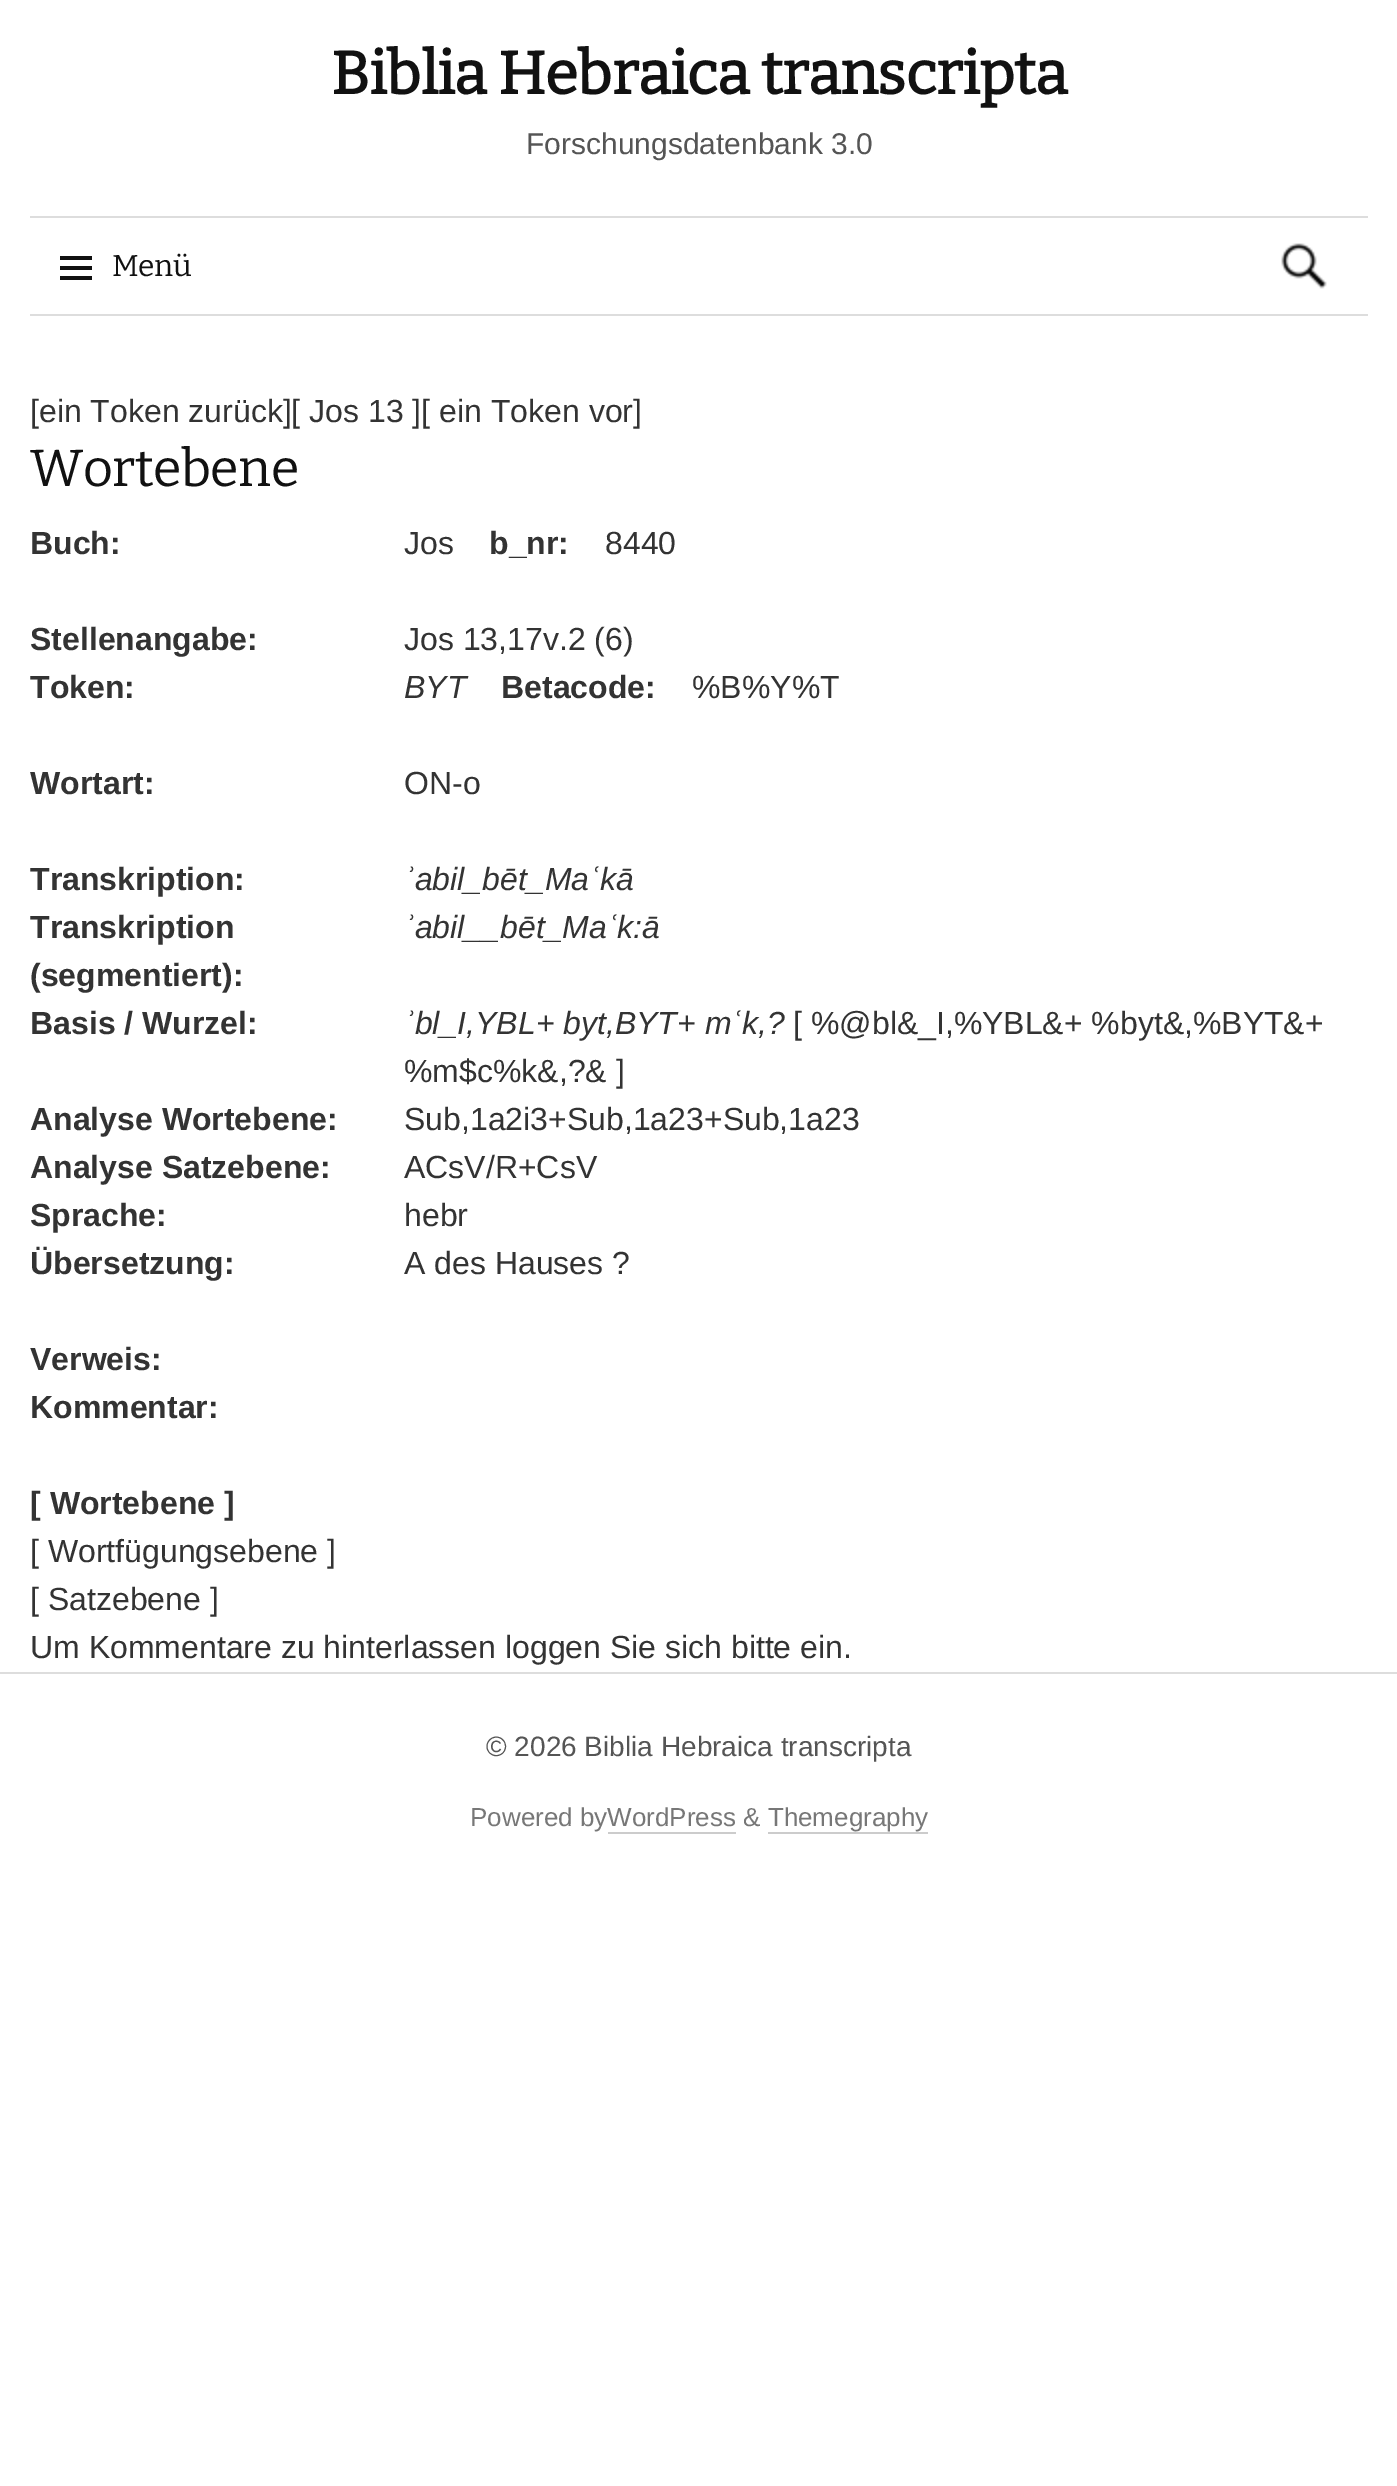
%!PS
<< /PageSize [1397 2486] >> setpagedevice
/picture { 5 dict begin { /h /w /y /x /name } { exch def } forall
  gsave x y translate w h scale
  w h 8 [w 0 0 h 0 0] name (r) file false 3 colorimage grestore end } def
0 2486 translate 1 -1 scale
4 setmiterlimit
1 setgray
0 0 1397 2486 rectfill
/Bitter-Bold [60 0 0 -60 0 0] selectfont
0.067 setgray
331 94 moveto -0.6 0 (Biblia Hebraica transcripta) ashow
/LiberationSans-Regular [30 0 0 -30 0 0] selectfont
0.333 setgray
526 154 moveto (Forschungsdatenbank 3.0) show
0.867 setgray
30 314 1338 2 rectfill
30 216 1338 2 rectfill
(img1.rgb) 60 256 32 24 picture
/Bitter-Thin [30 0 0 -30 0 0] selectfont
0.067 setgray
112 276 moveto -0.5 0 (Menü) ashow
(img2.rgb) 1281 243 46 46 picture
/LiberationSans-Regular [32 0 0 -32 0 0] selectfont
0.2 setgray
30 422 moveto ([ein Token zurück][ Jos 13 ][ ein Token vor]) show
/Bitter-Thin [52 0 0 -52 0 0] selectfont
0.067 setgray
30 486 moveto -0.5 0 (Wortebene) ashow
/LiberationSans-Bold [32 0 0 -32 0 0] selectfont
0.2 setgray
30 554 moveto (Buch:) show
/LiberationSans-Regular [32 0 0 -32 0 0] selectfont
404 554 moveto (Jos) show
/LiberationSans-Bold [32 0 0 -32 0 0] selectfont
489 554 moveto (b_nr:) show
/LiberationSans-Regular [32 0 0 -32 0 0] selectfont
605 554 moveto (8440) show
/LiberationSans-Bold [32 0 0 -32 0 0] selectfont
30 650 moveto (Stellenangabe:) show
/LiberationSans-Regular [32 0 0 -32 0 0] selectfont
404 650 moveto (Jos 13,17v.2 \(6\)) show
/LiberationSans-Bold [32 0 0 -32 0 0] selectfont
30 698 moveto (Token:) show
/LiberationSans-Italic [32 0 0 -32 0 0] selectfont
404 698 moveto (BYT) show
/LiberationSans-Bold [32 0 0 -32 0 0] selectfont
501 698 moveto (Betacode:) show
/LiberationSans-Regular [32 0 0 -32 0 0] selectfont
692 698 moveto (%B%Y%T) show
/LiberationSans-Bold [32 0 0 -32 0 0] selectfont
30 794 moveto (Wortart:) show
/LiberationSans-Regular [32 0 0 -32 0 0] selectfont
404 794 moveto (ON-o) show
/LiberationSans-Bold [32 0 0 -32 0 0] selectfont
30 890 moveto (Transkription:) show
/LiberationSans-Italic [32 0 0 -32 0 0] selectfont
404 890 moveto (ʾabil_bēt_Maʿkā) show
/LiberationSans-Bold [32 0 0 -32 0 0] selectfont
30 938 moveto (Transkription) show
30 986 moveto (\(segmentiert\):) show
/LiberationSans-Italic [32 0 0 -32 0 0] selectfont
404 938 moveto (ʾabil__bēt_Maʿk:ā) show
/LiberationSans-Bold [32 0 0 -32 0 0] selectfont
30 1034 moveto (Basis / Wurzel:) show
/LiberationSans-Italic [32 0 0 -32 0 0] selectfont
404 1034 moveto (ʾbl_I,YBL+ byt,BYT+ mʿk,?) show
/LiberationSans-Regular [32 0 0 -32 0 0] selectfont
793 1034 moveto ([ %@bl&_I,%YBL&+ %byt&,%BYT&+) show
404 1082 moveto (%m$c%k&,?& ]) show
/LiberationSans-Bold [32 0 0 -32 0 0] selectfont
30 1130 moveto (Analyse Wortebene:) show
/LiberationSans-Regular [32 0 0 -32 0 0] selectfont
404 1130 moveto (Sub,1a2i3+Sub,1a23+Sub,1a23) show
/LiberationSans-Bold [32 0 0 -32 0 0] selectfont
30 1178 moveto (Analyse Satzebene:) show
/LiberationSans-Regular [32 0 0 -32 0 0] selectfont
404 1178 moveto (ACsV/R+CsV) show
/LiberationSans-Bold [32 0 0 -32 0 0] selectfont
30 1226 moveto (Sprache:) show
/LiberationSans-Regular [32 0 0 -32 0 0] selectfont
404 1226 moveto (hebr) show
/LiberationSans-Bold [32 0 0 -32 0 0] selectfont
30 1274 moveto (Übersetzung:) show
/LiberationSans-Regular [32 0 0 -32 0 0] selectfont
404 1274 moveto (A des Hauses ?) show
/LiberationSans-Bold [32 0 0 -32 0 0] selectfont
30 1370 moveto (Verweis:) show
30 1418 moveto (Kommentar:) show
30 1514 moveto ([ Wortebene ]) show
/LiberationSans-Regular [32 0 0 -32 0 0] selectfont
30 1562 moveto ([ Wortfügungsebene ]) show
30 1610 moveto ([ Satzebene ]) show
30 1658 moveto (Um Kommentare zu hinterlassen loggen Sie sich bitte ein.) show
0.867 setgray
0 1672 1397 2 rectfill
/LiberationSans-Regular [28 0 0 -28 0 0] selectfont
0.333 setgray
486 1756 moveto (© 2026 Biblia Hebraica transcripta) show
/LiberationSans-Regular [26 0 0 -26 0 0] selectfont
0.467 setgray
470 1826 moveto (Powered byWordPress & Themegraphy) show
0.8 setgray
608 1832 128 2 rectfill
768 1832 160 2 rectfill
showpage
